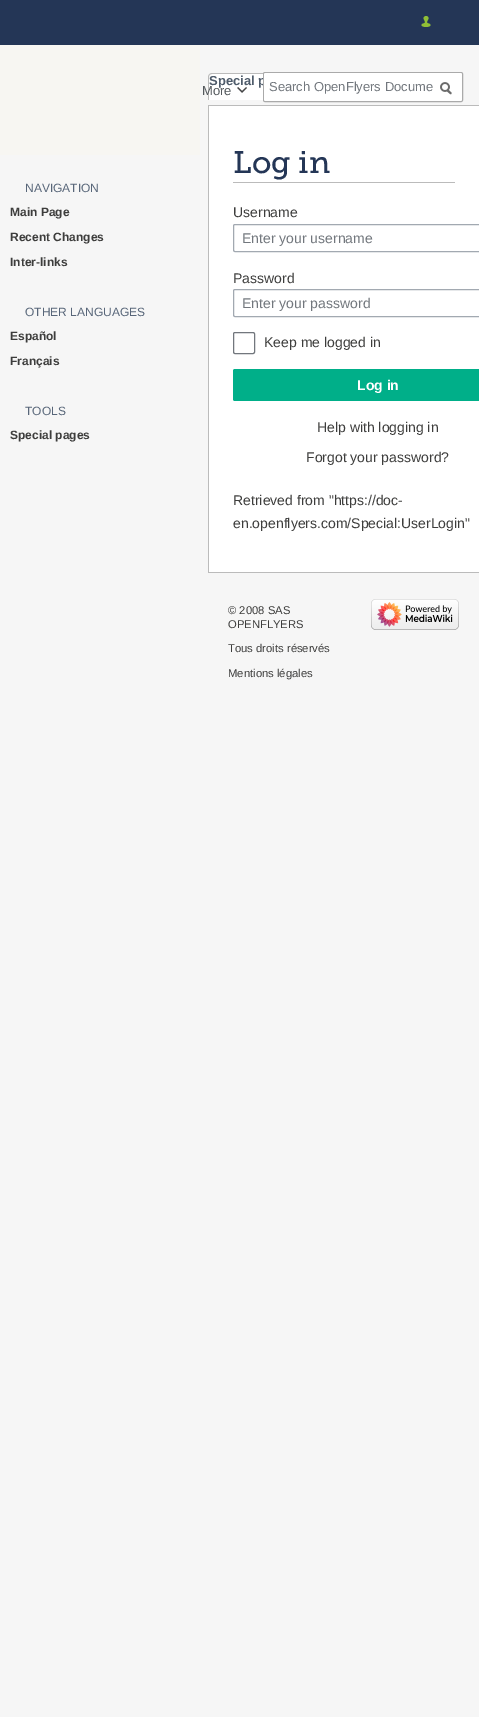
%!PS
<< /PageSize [479 1717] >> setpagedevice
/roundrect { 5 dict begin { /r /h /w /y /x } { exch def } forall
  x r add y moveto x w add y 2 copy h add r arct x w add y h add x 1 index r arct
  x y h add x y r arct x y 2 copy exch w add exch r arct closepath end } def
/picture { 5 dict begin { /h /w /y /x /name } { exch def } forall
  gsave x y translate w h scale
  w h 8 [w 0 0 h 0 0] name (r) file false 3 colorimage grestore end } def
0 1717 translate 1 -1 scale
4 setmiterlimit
0.965 setgray
0 0 479 1717 rectfill
0.141 0.212 0.337 setrgbcolor
0 0 479 45 rectfill
(img1.rgb) 421 16 10 11 picture
1 setgray
newpath 212 74 moveto 284 74 lineto 285.5 74 287 75.5 287 77 curveto 287 100 lineto 209 100 lineto 209 77 lineto 209 75.5 210.5 74 212 74 curveto closepath fill
0.733 setgray
newpath 212 73 moveto 284 73 lineto 286 73 288 75 288 77 curveto 288 100 lineto 208 100 lineto 208 77 lineto 208 75 210 73 212 73 curveto closepath 212 74 moveto 284 74 lineto 286 74 287 75 287 77 curveto 287 100 lineto 209 100 lineto 209 77 lineto 209 75 210 74 212 74 curveto closepath eofill
/LiberationSans-Bold [13 0 0 -13 0 0] selectfont
0.31 0.361 0.42 setrgbcolor
209 85 moveto (Special p) show
/LiberationSans-Regular [13 0 0 -13 0 0] selectfont
0.329 0.349 0.365 setrgbcolor
202 95 moveto (More) show
(img2.rgb) 237 87 10 6 picture
1 setgray
263.5 72.5 199 29 1.5 roundrect gsave fill grestore
0.667 setgray
stroke
1 setgray
264 73 198 28 2 roundrect fill
0.447 0.467 0.49 setrgbcolor
269 91 moveto (Search OpenFlyers Docume) show
(img3.rgb) 440 82 12 13 picture
0.969 0.965 0.949 setrgbcolor
0 45 200 110 rectfill
/LiberationSans-Regular [12 0 0 -12 0 0] selectfont
0.345 0.4 0.475 setrgbcolor
25 192 moveto (NAVIGATION) show
/LiberationSans-Bold [12 0 0 -12 0 0] selectfont
0.239 0.239 0.235 setrgbcolor
10 216 moveto (Main Page) show
10 241 moveto (Recent Changes) show
10 266 moveto (Inter-links) show
/LiberationSans-Regular [12 0 0 -12 0 0] selectfont
0.345 0.4 0.475 setrgbcolor
25 316 moveto (OTHER LANGUAGES) show
/LiberationSans-Bold [12 0 0 -12 0 0] selectfont
0.239 0.239 0.235 setrgbcolor
10 340 moveto (Español) show
10 365 moveto (Français) show
/LiberationSans-Regular [12 0 0 -12 0 0] selectfont
0.345 0.4 0.475 setrgbcolor
25 415 moveto (TOOLS) show
/LiberationSans-Bold [12 0 0 -12 0 0] selectfont
0.239 0.239 0.235 setrgbcolor
10 439 moveto (Special pages) show
0.733 setgray
208 105 271 1 rectfill
1 setgray
209 106 270 466 rectfill
0.733 setgray
208 106 1 466 rectfill
233 182 222 1 rectfill
/MuseoSlab-Regular [31 0 0 -31 0 0] selectfont
0.141 0.212 0.337 setrgbcolor
233 173 moveto (Log in) show
/LiberationSans-Regular [14 0 0 -14 0 0] selectfont
0.239 0.239 0.235 setrgbcolor
233 217 moveto (Username) show
0.635 0.663 0.694 setrgbcolor
233.5 224.5 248 27 1.5 roundrect stroke
0.447 0.467 0.49 setrgbcolor
242 243 moveto (Enter your username) show
0.239 0.239 0.235 setrgbcolor
233 283 moveto (Password) show
0.635 0.663 0.694 setrgbcolor
233.5 289.5 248 27 1.5 roundrect stroke
0.447 0.467 0.49 setrgbcolor
242 308 moveto (Enter your password) show
233.5 332.5 21 21 1.5 roundrect stroke
0.239 0.239 0.235 setrgbcolor
264 347 moveto (Keep me logged in) show
0 0.686 0.537 setrgbcolor
233 369 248 32 2 roundrect fill
234 369 1 1 rectfill
234 400 1 1 rectfill
/LiberationSans-Bold [14 0 0 -14 0 0] selectfont
1 setgray
357 390 moveto (Log in) show
/LiberationSans-Regular [14 0 0 -14 0 0] selectfont
0.239 0.239 0.235 setrgbcolor
317 432 moveto (Help with logging in) show
306 462 moveto (Forgot your password?) show
233 505 moveto (Retrieved from "https://doc-) show
233 528 moveto (en.openflyers.com/Special:UserLogin") show
0.733 setgray
208 572 271 1 rectfill
/LiberationSans-Regular [11.25 0 0 -11.25 0 0] selectfont
0.239 0.239 0.235 setrgbcolor
228 614 moveto (© 2008 SAS) show
228 628 moveto (OPENFLYERS) show
(img4.rgb) 371 599 88 31 picture
228 652 moveto (Tous droits réservés) show
228 677 moveto (Mentions légales) show
showpage
